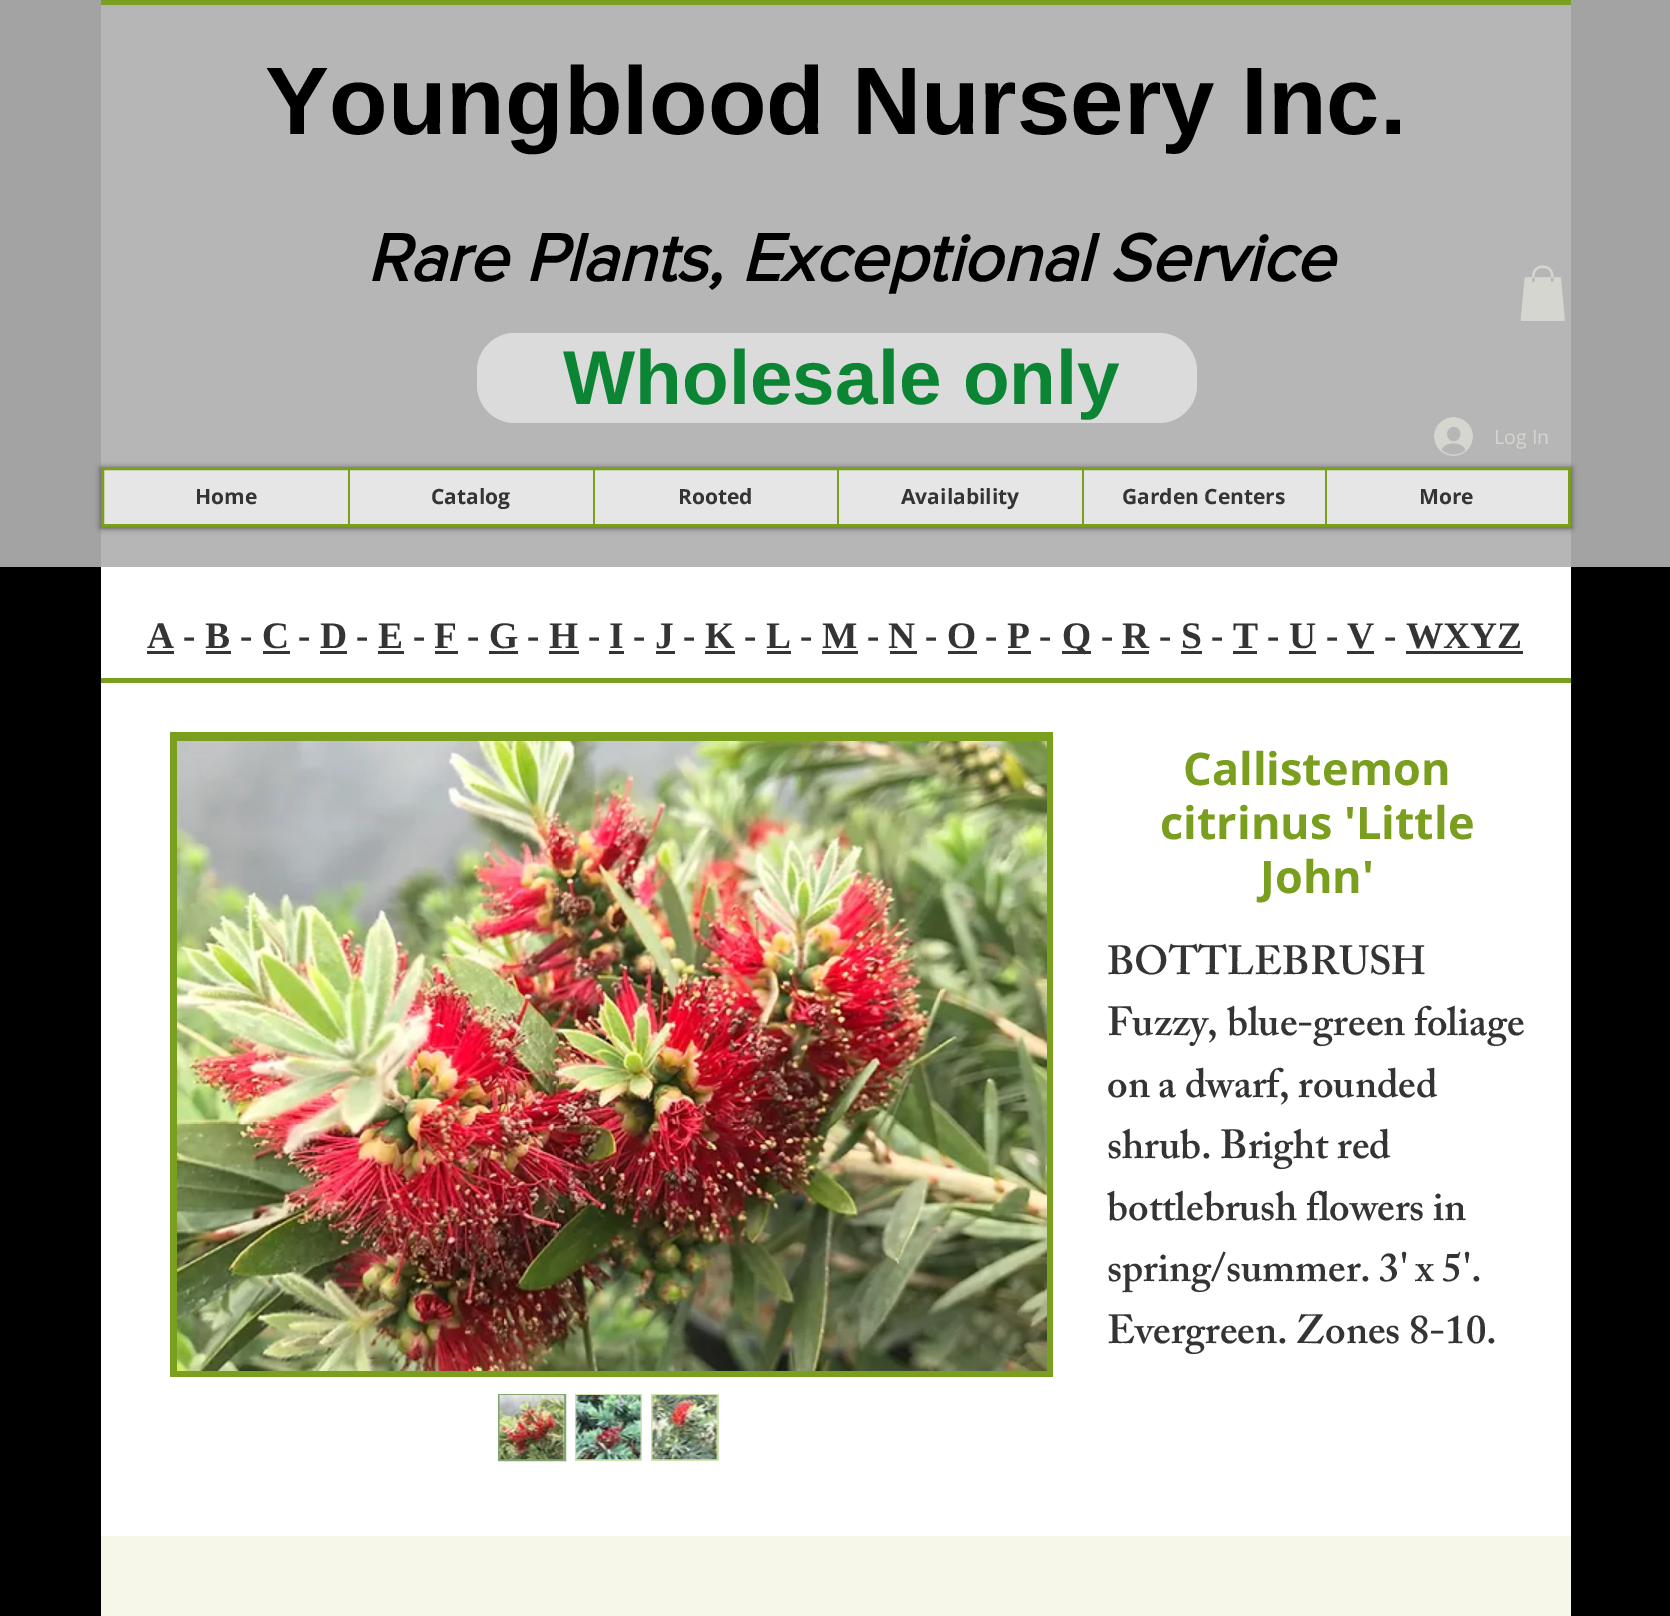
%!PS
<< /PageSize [1670 1616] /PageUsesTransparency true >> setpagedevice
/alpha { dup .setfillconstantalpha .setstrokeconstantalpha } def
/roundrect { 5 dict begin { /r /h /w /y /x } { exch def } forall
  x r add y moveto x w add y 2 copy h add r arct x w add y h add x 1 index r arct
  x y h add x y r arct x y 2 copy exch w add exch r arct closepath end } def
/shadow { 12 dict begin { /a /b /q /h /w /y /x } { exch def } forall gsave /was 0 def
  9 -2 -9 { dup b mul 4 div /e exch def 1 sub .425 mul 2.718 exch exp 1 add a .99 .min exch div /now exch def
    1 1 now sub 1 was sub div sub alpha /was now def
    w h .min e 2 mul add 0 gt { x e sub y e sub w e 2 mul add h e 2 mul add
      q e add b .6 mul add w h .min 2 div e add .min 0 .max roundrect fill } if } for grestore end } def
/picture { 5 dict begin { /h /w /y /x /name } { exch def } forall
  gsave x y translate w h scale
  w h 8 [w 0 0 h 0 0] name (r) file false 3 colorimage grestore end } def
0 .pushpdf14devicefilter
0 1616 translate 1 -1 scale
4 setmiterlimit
0 setgray
0 0 1670 1616 rectfill
0.639 setgray
0 0 1670 567 rectfill
0.714 setgray
101 5 1470 562 rectfill
0.478 0.62 0.118 setrgbcolor
101 0 1470 5 rectfill
/LiberationSans-Bold [96 0 0 -96 0 0] selectfont
0 setgray
265 134 moveto (Youngblood Nursery Inc.) show
/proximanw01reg-BoldItalic [69 0 0 -69 0 0] selectfont
367 281 moveto (Rare Plants, Exceptional Service) show
(img1.rgb) 1520 265 45 56 picture
0.859 setgray
477 333 720 90 38 roundrect fill
/LiberationSans-Bold [76.5 0 0 -76.5 0 0] selectfont
0.043 0.522 0.2 setrgbcolor
563 404 moveto (Wholesale only) show
(img2.rgb) 1434 417 39 39 picture
/OpenSans-Regular [19.5 0 0 -19.5 0 0] selectfont
0.835 0.839 0.816 setrgbcolor
1494 444 moveto (Log In) show
gsave
newpath 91 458 moveto 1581 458 lineto 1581 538 lineto 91 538 lineto closepath 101 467 moveto 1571 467 lineto 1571 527 lineto 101 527 lineto closepath eoclip newpath
0 setgray
101 468 1470 60 0 3 0.6 shadow
grestore
0.65 alpha
1 setgray
newpath 102.5 468.5 moveto 1569.5 468.5 lineto 1569.5 525.5 lineto 102.5 525.5 lineto closepath fill
1 alpha
0.478 0.62 0.118 setrgbcolor
3 setlinewidth
newpath 102.5 468.5 moveto 1569.5 468.5 lineto 1569.5 525.5 lineto 102.5 525.5 lineto closepath stroke
/OpenSans-Bold [21 0 0 -21 0 0] selectfont
0.204 setgray
195 504 moveto (Home) show
0.478 0.62 0.118 setrgbcolor
348 470 2 54 rectfill
0.204 setgray
431 504 moveto (Catalog) show
0.478 0.62 0.118 setrgbcolor
593 470 2 54 rectfill
0.204 setgray
678 504 moveto (Rooted) show
0.478 0.62 0.118 setrgbcolor
837 470 2 54 rectfill
0.204 setgray
901 504 moveto (Availability) show
0.478 0.62 0.118 setrgbcolor
1082 470 2 54 rectfill
0.204 setgray
1122 504 moveto (Garden Centers) show
0.478 0.62 0.118 setrgbcolor
1325 470 2 54 rectfill
0.204 setgray
1419 504 moveto (More) show
1 setgray
101 567 1470 969 rectfill
/LiberationSerif-Bold [37.5 0 0 -37.5 0 0] selectfont
0.204 setgray
147 648 moveto (A - B - C - D - E - F - G - H - I - J - K - L - M - N - O - P -) show
147 651 27 3 rectfill
206 651 25 3 rectfill
263 651 27 3 rectfill
320 651 27 3 rectfill
378 651 26 3 rectfill
435 651 23 3 rectfill
489 651 29 3 rectfill
549 651 30 3 rectfill
609 651 15 3 rectfill
656 651 19 3 rectfill
705 651 30 3 rectfill
767 651 24 3 rectfill
822 651 36 3 rectfill
890 651 27 3 rectfill
948 651 29 3 rectfill
1008 651 23 3 rectfill
1062 651 29 3 rectfill
1062 648 moveto (Q - R - S - T - U - V - WXYZ) show
1122 651 27 3 rectfill
1181 651 21 3 rectfill
1233 651 24 3 rectfill
1289 651 27 3 rectfill
1347 651 27 3 rectfill
1406 651 117 3 rectfill
0.478 0.62 0.118 setrgbcolor
101 678 1470 5 rectfill
170 732 883 645 rectfill
(img3.rgb) 177 741 870 630 picture
0.816 0.886 0.69 setrgbcolor
563 1396 1 63 rectfill
0.514 0.651 0.443 setrgbcolor
2 setlinewidth
499 1395 66 65 rectstroke
(img4.rgb) 499 1395 66 65 picture
0.816 0.886 0.69 setrgbcolor
575 1394 67 67 rectfill
(img5.rgb) 575 1395 66 65 picture
651 1394 68 67 rectfill
(img6.rgb) 652 1395 66 65 picture
/OpenSans-Bold [45 0 0 -45 0 0] selectfont
0.478 0.62 0.118 setrgbcolor
1183 785 moveto (Callistemon) show
1160 839 moveto (citrinus 'Little) show
1260 893 moveto (John') show
/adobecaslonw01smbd-SemiBold [40.5 0 0 -40.5 0 0] selectfont
0.204 setgray
1107 974 moveto (BOTTLEBRUSH) show
1107 1035 moveto (Fuzzy, blue-green foliage) show
1107 1097 moveto (on a dwarf, rounded) show
1107 1158 moveto (shrub. Bright red) show
1107 1220 moveto (bottlebrush flowers in) show
1107 1281 moveto (spring/summer. 3' x 5'.) show
1107 1343 moveto (Evergreen. Zones 8-10.) show
0.965 0.965 0.914 setrgbcolor
101 1536 1470 80 rectfill
.poppdf14devicefilter showpage
